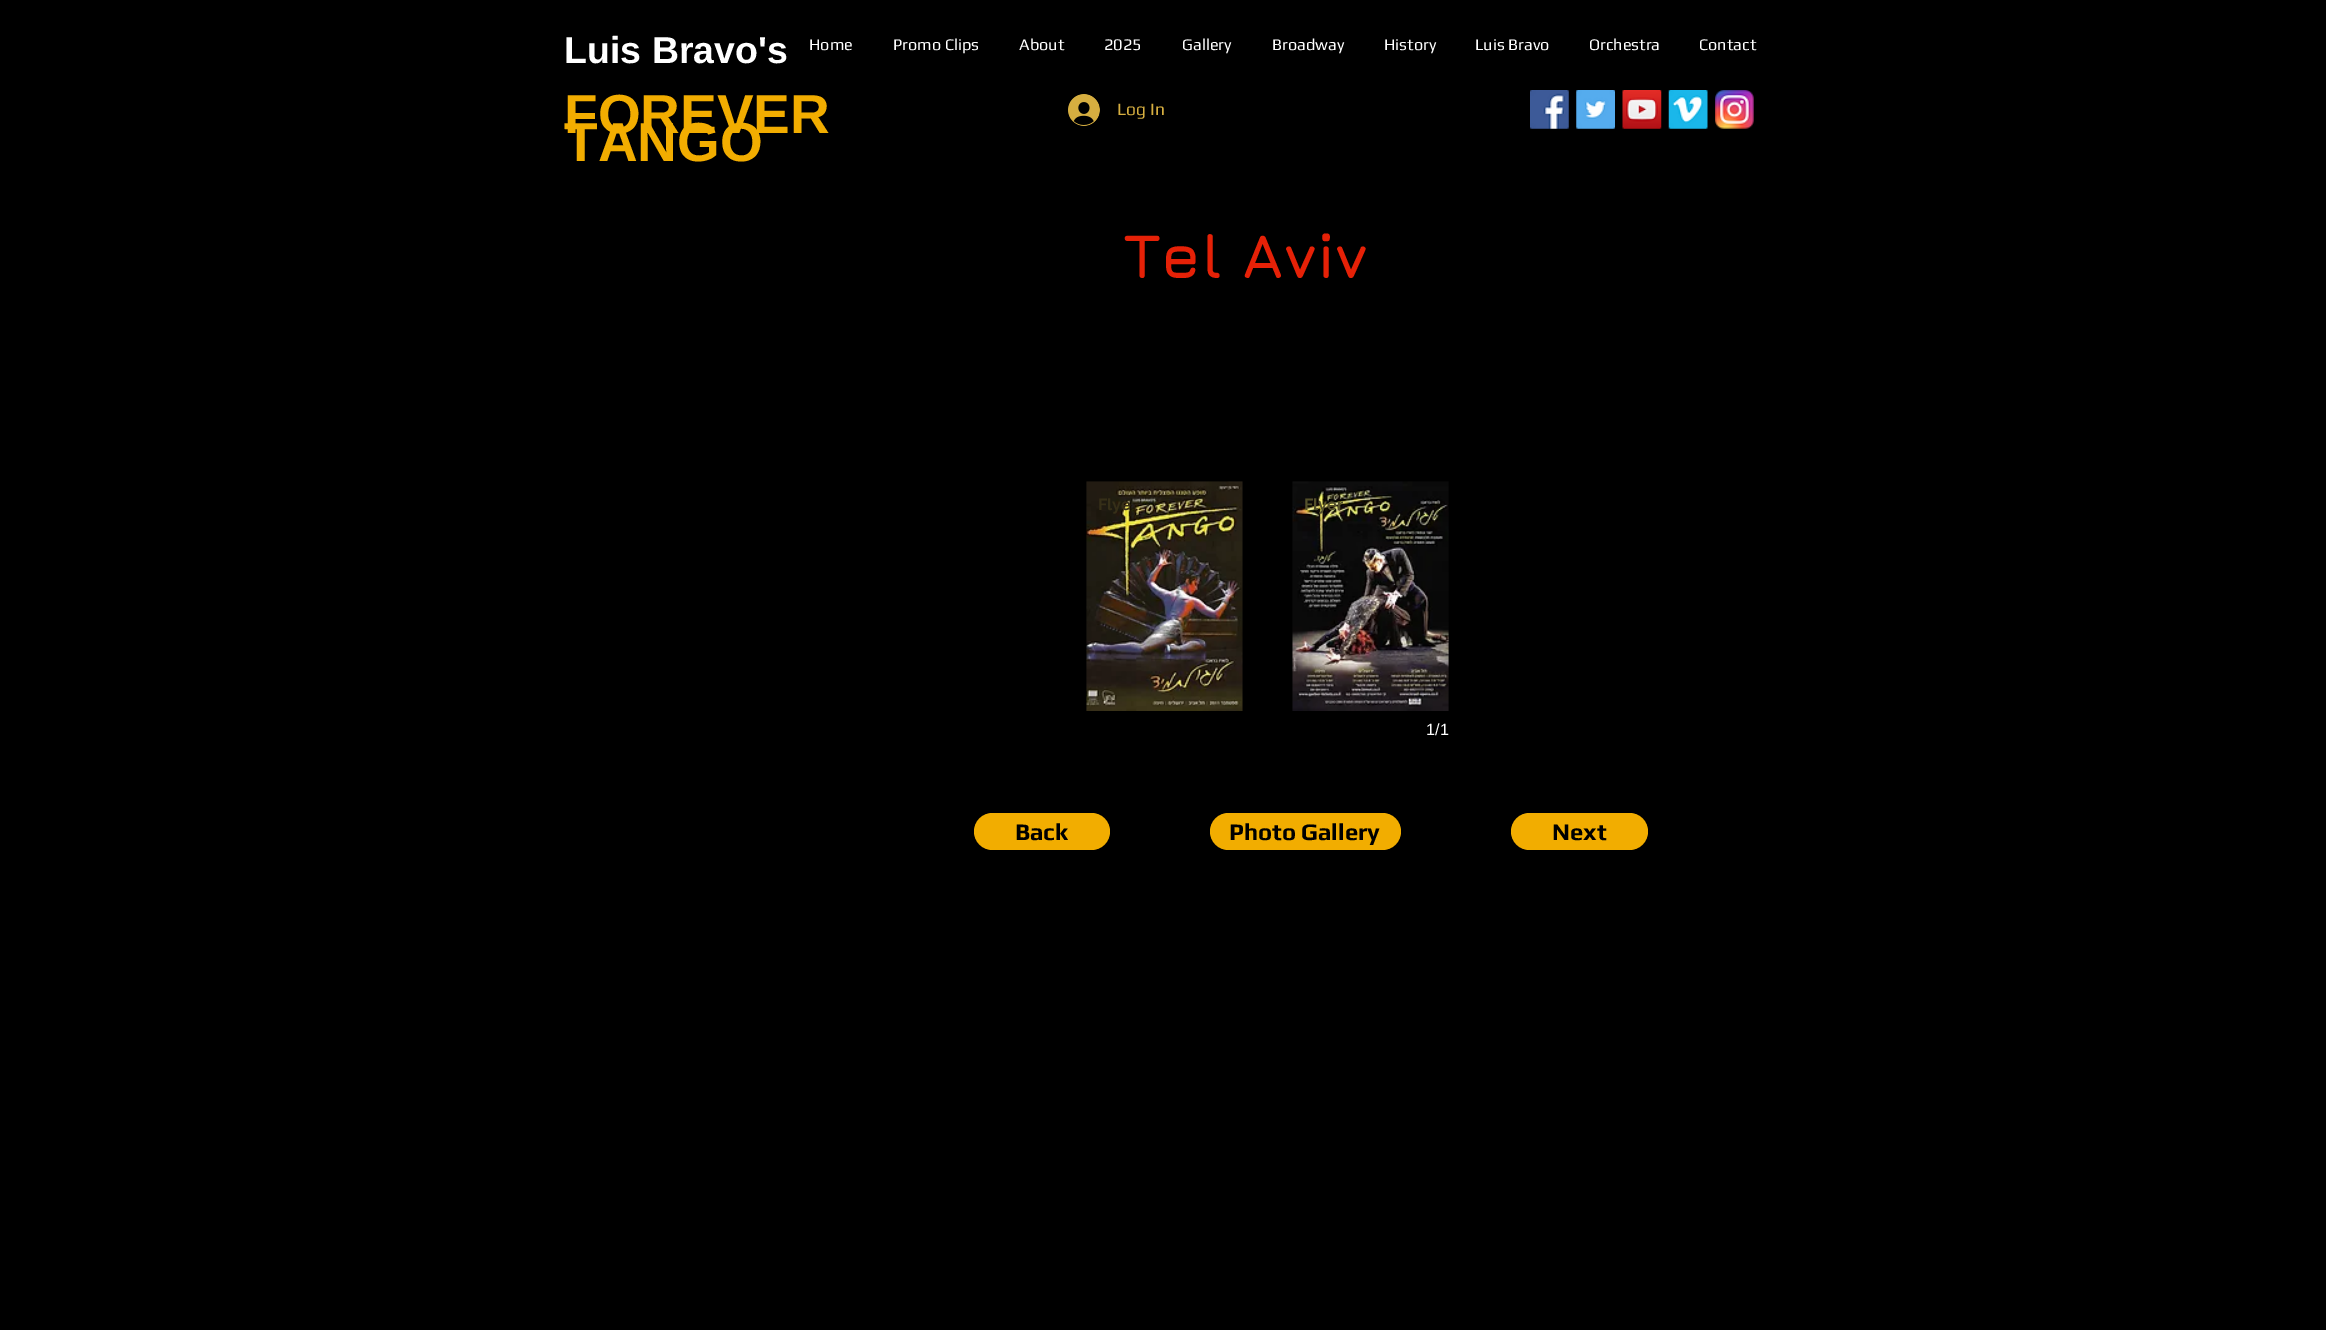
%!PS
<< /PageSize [2326 1330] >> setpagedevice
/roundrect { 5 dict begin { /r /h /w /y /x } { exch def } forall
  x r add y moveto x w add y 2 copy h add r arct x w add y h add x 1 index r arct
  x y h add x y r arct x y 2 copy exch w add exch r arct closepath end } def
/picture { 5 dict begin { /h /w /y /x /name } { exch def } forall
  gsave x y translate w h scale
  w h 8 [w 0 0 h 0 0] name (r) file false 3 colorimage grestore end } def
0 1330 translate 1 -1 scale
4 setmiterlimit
0 setgray
0 0 2326 1330 rectfill
/LiberationSans-Bold [37.5 0 0 -37.5 0 0] selectfont
1 setgray
564 63 moveto (Luis Bravo's) show
/Play-Regular [16.25 0 0 -16.25 0 0] selectfont
809 50 moveto (Home) show
893 50 moveto (Promo Clips) show
1019 50 moveto (About) show
1104 50 moveto (2025) show
1182 50 moveto (Gallery) show
1272 50 moveto (Broadway) show
1384 50 moveto (History) show
1475 50 moveto (Luis Bravo) show
1589 50 moveto (Orchestra) show
1699 50 moveto (Contact) show
/LiberationSans-Bold [55 0 0 -55 0 0] selectfont
0.949 0.678 0 setrgbcolor
564 133 moveto (FOREVER) show
564 161 moveto (TANGO) show
(img1.rgb) 1068 94 32 32 picture
/Play-Regular [17.5 0 0 -17.5 0 0] selectfont
0.839 0.682 0.251 setrgbcolor
1117 115 moveto (Log In) show
(img2.rgb) 1530 90 39 39 picture
(img3.rgb) 1576 90 39 39 picture
(img4.rgb) 1622 90 40 39 picture
(img5.rgb) 1668 90 40 39 picture
(img6.rgb) 1715 90 39 39 picture
/Jura-Bold [62.5 0 0 -62.5 0 0] selectfont
0.902 0.129 0.027 setrgbcolor
1123 278 moveto (Tel Aviv) show
(img7.rgb) 1086 481 157 230 picture
/Raleway-Bold [16.25 0 0 -16.25 0 0] selectfont
0.212 0.184 0.094 setrgbcolor
1098 510 moveto (Flye) show
(img8.rgb) 1292 481 157 230 picture
0.333 0.318 0.169 setrgbcolor
1304 510 moveto (Flyer) show
/LiberationSans-Regular [16.25 0 0 -16.25 0 0] selectfont
1 setgray
1426 735 moveto (1/1) show
0.949 0.678 0 setrgbcolor
974 813 136 37 18.5 roundrect fill
/Play-Bold [23.75 0 0 -23.75 0 0] selectfont
0 setgray
1015 840 moveto (Back) show
0.949 0.678 0 setrgbcolor
1210 813 191 37 18.5 roundrect fill
0 setgray
1229 840 moveto (Photo Gallery) show
0.949 0.678 0 setrgbcolor
1511 813 137 37 18.5 roundrect fill
0 setgray
1552 840 moveto (Next) show
showpage
